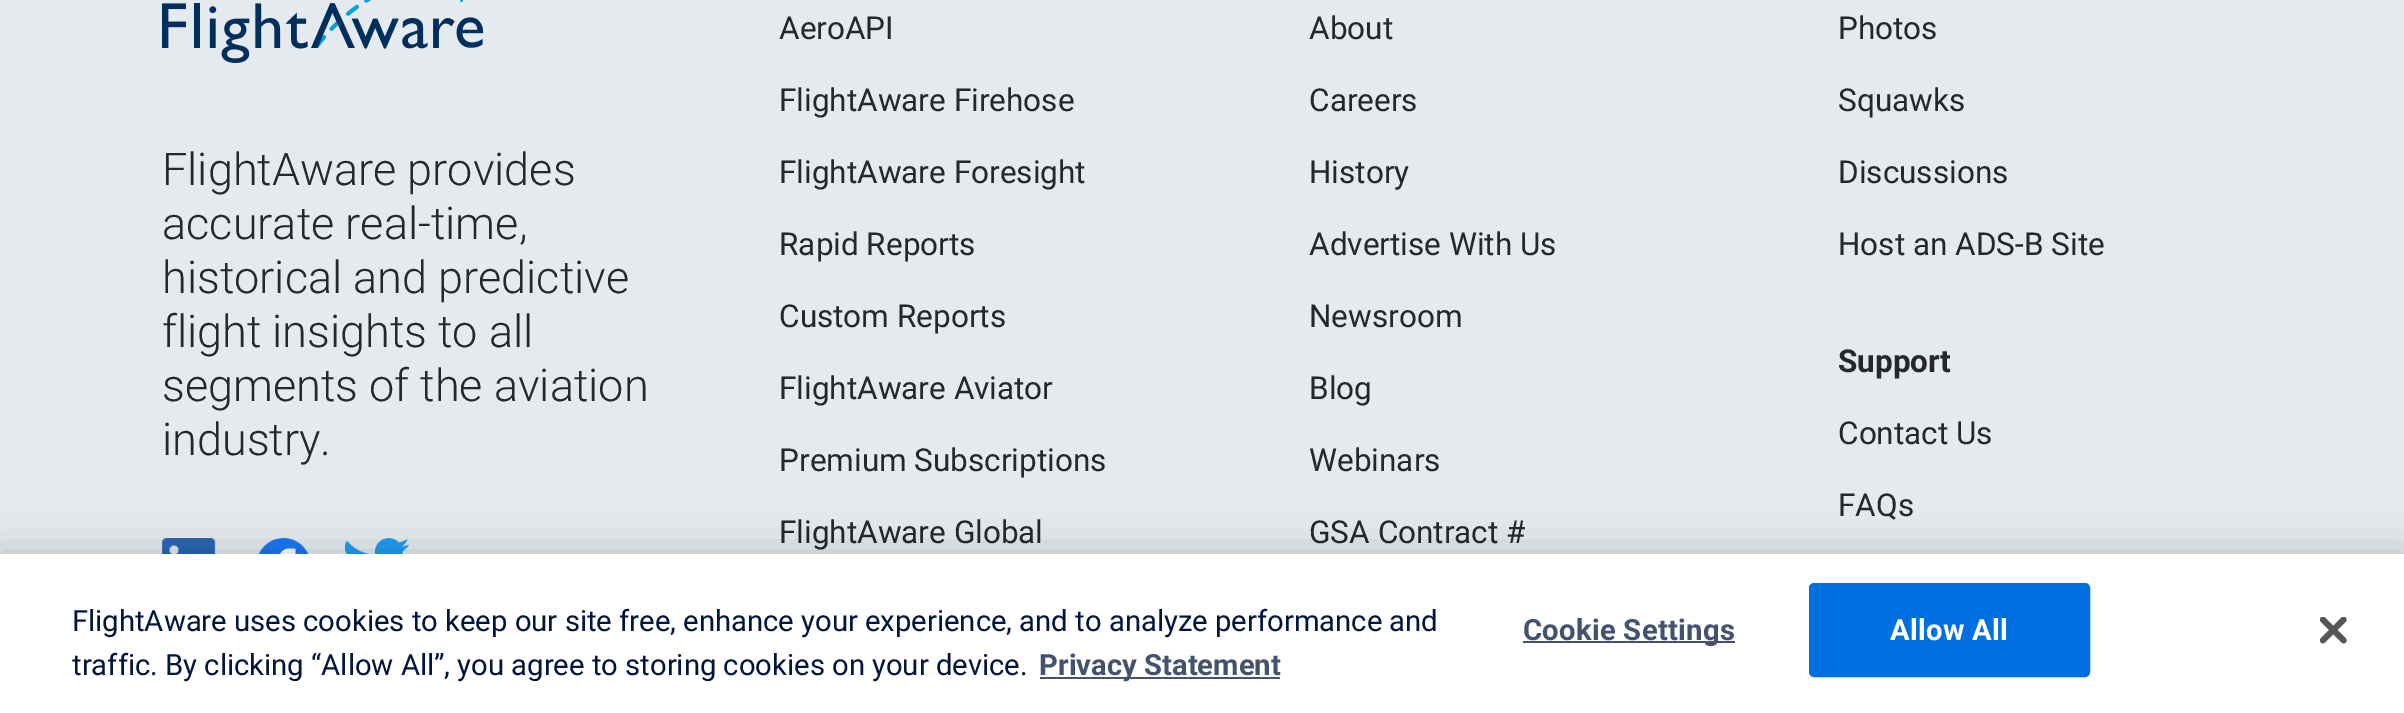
%!PS
<< /PageSize [2404 713] /PageUsesTransparency true >> setpagedevice
/alpha { dup .setfillconstantalpha .setstrokeconstantalpha } def
/roundrect { 5 dict begin { /r /h /w /y /x } { exch def } forall
  x r add y moveto x w add y 2 copy h add r arct x w add y h add x 1 index r arct
  x y h add x y r arct x y 2 copy exch w add exch r arct closepath end } def
/shadow { 12 dict begin { /a /b /q /h /w /y /x } { exch def } forall gsave /was 0 def
  9 -2 -9 { dup b mul 4 div /e exch def 1 sub .425 mul 2.718 exch exp 1 add a .99 .min exch div /now exch def
    1 1 now sub 1 was sub div sub alpha /was now def
    w h .min e 2 mul add 0 gt { x e sub y e sub w e 2 mul add h e 2 mul add
      q e add b .6 mul add w h .min 2 div e add .min 0 .max roundrect fill } if } for grestore end } def
/picture { 5 dict begin { /h /w /y /x /name } { exch def } forall
  gsave x y translate w h scale
  w h 8 [w 0 0 h 0 0] name (r) file false 3 colorimage grestore end } def
0 .pushpdf14devicefilter
0 713 translate 1 -1 scale
4 setmiterlimit
0.898 0.918 0.937 setrgbcolor
0 0 2404 713 rectfill
(img1.rgb) 162 0 322 63 picture
/Roboto-Light [45 0 0 -45 0 0] selectfont
0.153 setgray
162 185 moveto (FlightAware provides) show
162 239 moveto (accurate real-time,) show
162 293 moveto (historical and predictive) show
162 347 moveto (flight insights to all) show
162 401 moveto (segments of the aviation) show
162 455 moveto (industry.) show
(img2.rgb) 162 538 54 16 picture
(img3.rgb) 258 538 51 16 picture
(img4.rgb) 344 538 66 16 picture
/Roboto-Regular [31.5 0 0 -31.5 0 0] selectfont
779 39 moveto (AeroAPI) show
779 111 moveto (FlightAware Firehose) show
779 183 moveto (FlightAware Foresight) show
779 255 moveto (Rapid Reports) show
779 327 moveto (Custom Reports) show
779 399 moveto (FlightAware Aviator) show
779 471 moveto (Premium Subscriptions) show
779 543 moveto (FlightAware Global) show
1309 39 moveto (About) show
1309 111 moveto (Careers) show
1309 183 moveto (History) show
1309 255 moveto (Advertise With Us) show
1309 327 moveto (Newsroom) show
1309 399 moveto (Blog) show
1309 471 moveto (Webinars) show
1309 543 moveto (GSA Contract #) show
1838 39 moveto (Photos) show
1838 111 moveto (Squawks) show
1838 183 moveto (Discussions) show
1838 255 moveto (Host an ADS-B Site) show
/Roboto-Bold [31.5 0 0 -31.5 0 0] selectfont
1838 372 moveto (Support) show
/Roboto-Regular [31.5 0 0 -31.5 0 0] selectfont
1838 444 moveto (Contact Us) show
1838 516 moveto (FAQs) show
0 setgray
0 554 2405 159 0 20 0.2 shadow
1 setgray
0 554 2404 159 rectfill
/Roboto-Regular [29.25 0 0 -29.25 0 0] selectfont
0 0.082 0.239 setrgbcolor
72 631 moveto (FlightAware uses cookies to keep our site free, enhance your experience, and to analyze performance and) show
72 675 moveto (traffic. By clicking “Allow All”, you agree to storing cookies on your device.) show
0.259 0.322 0.435 setrgbcolor
1040 677 240 2 rectfill
/Roboto-Bold [29.25 0 0 -29.25 0 0] selectfont
1039 675 moveto (Privacy Statement) show
1523 641 212 2 rectfill
1523 640 moveto 0.25 0 (Cookie Settings) ashow
0 0.439 0.878 setrgbcolor
1810 584 279 92 4 roundrect gsave fill grestore
2 setlinewidth
stroke
1 setgray
1890 640 moveto 0.25 0 (Allow All) ashow
(img5.rgb) 2320 617 27 27 picture
.poppdf14devicefilter showpage
